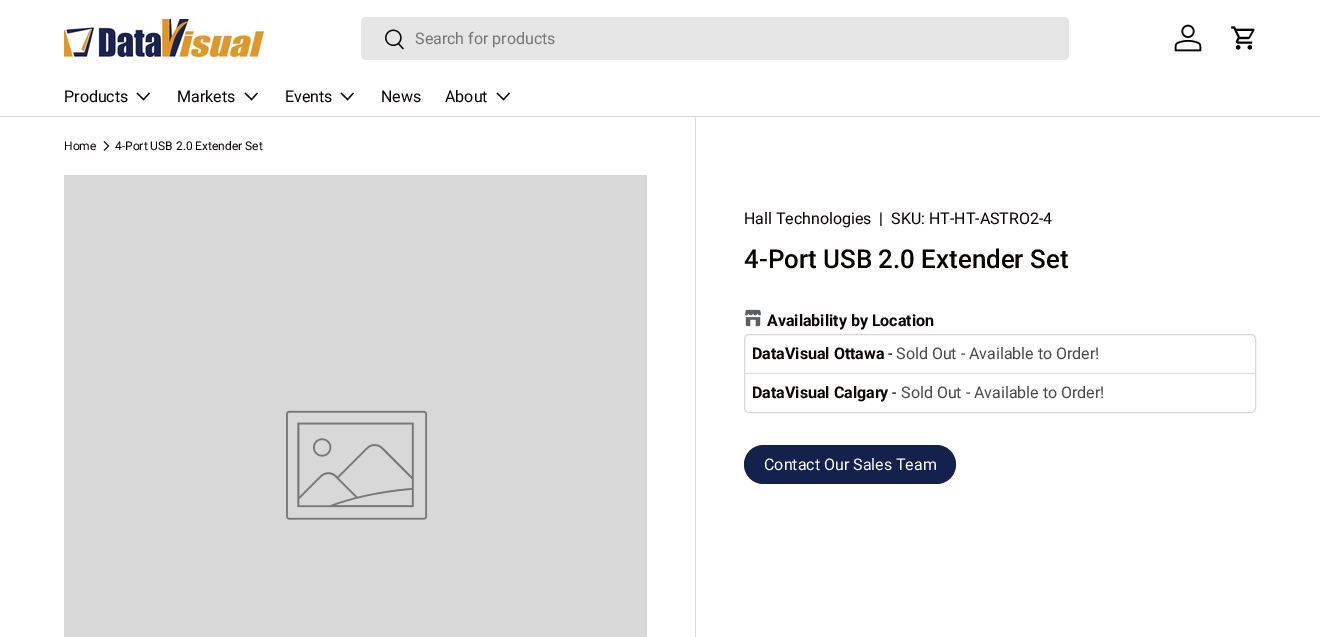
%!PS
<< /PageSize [1320 637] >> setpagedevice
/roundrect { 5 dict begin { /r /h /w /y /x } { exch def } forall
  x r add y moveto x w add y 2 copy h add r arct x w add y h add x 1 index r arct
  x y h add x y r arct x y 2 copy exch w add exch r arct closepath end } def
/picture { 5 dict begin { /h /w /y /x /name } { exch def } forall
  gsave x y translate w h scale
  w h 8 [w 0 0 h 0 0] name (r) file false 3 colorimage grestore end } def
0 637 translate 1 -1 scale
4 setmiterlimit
1 setgray
0 0 1320 637 rectfill
0.855 setgray
0 116 1320 1 rectfill
(img1.rgb) 64 19 200 38 picture
0.902 setgray
361 17 708 43 5 roundrect fill
(img2.rgb) 385 29 19 21 picture
/Roboto-Regular [16 0 0 -16 0 0] selectfont
0.467 setgray
415 44 moveto (Search for products) show
(img3.rgb) 1174 24 28 28 picture
(img4.rgb) 1231 26 24 24 picture
0.035 0.012 0.008 setrgbcolor
64 102 moveto (Products) show
0.027 setgray
1.2 setlinewidth
newpath 149.5 93 moveto 143.5 99.5 lineto 137 93 lineto stroke
0.035 0.012 0.008 setrgbcolor
177 102 moveto (Markets) show
0.027 setgray
newpath 257.5 93 moveto 251.5 99.5 lineto 245 93 lineto stroke
0.035 0.012 0.008 setrgbcolor
285 102 moveto (Events) show
0.027 setgray
newpath 353.5 93 moveto 347.5 99.5 lineto 341 93 lineto stroke
0.035 0.012 0.008 setrgbcolor
381 102 moveto (News) show
445 102 moveto (About) show
0.027 setgray
newpath 509.5 93 moveto 503.5 99.5 lineto 497 93 lineto stroke
/Roboto-Regular [12 0 0 -12 0 0] selectfont
0.035 0.012 0.008 setrgbcolor
64 150 moveto (Home) show
0.9 setlinewidth
newpath 104 141.5 moveto 108.5 146 lineto 104 150.5 lineto stroke
115 150 moveto (4-Port USB 2.0 Extender Set) show
0.847 setgray
64 175 583 462 rectfill
(img5.rgb) 286 410 142 110 picture
0.855 0.851 0.851 setrgbcolor
695 117 1 520 rectfill
/Roboto-Regular [16 0 0 -16 0 0] selectfont
0.035 0.012 0.008 setrgbcolor
744 224 moveto (Hall Technologies) show
879 224 moveto (|) show
891 224 moveto (SKU: HT-HT-ASTRO2-4) show
/Roboto-Medium [25.9 0 0 -25.9 0 0] selectfont
744 268 moveto (4-Port USB 2.0 Extender Set) show
(img6.rgb) 745 309 16 18 picture
/Roboto-Bold [16 0 0 -16 0 0] selectfont
767 326 moveto (Availability by Location) show
0.851 setgray
1 setlinewidth
744.5 334.5 511 78 4.5 roundrect stroke
0.035 0.012 0.008 setrgbcolor
752 359 moveto (DataVisual Ottawa) show
/Roboto-Regular [16 0 0 -16 0 0] selectfont
888 359 moveto (-) show
0.29 setgray
896 359 moveto (Sold Out - Available to Order!) show
0.851 setgray
745 373 510 1 rectfill
/Roboto-Bold [16 0 0 -16 0 0] selectfont
0.035 0.012 0.008 setrgbcolor
752 398 moveto (DataVisual Calgary) show
/Roboto-Regular [16 0 0 -16 0 0] selectfont
892 398 moveto (-) show
0.29 setgray
901 398 moveto (Sold Out - Available to Order!) show
0.078 0.129 0.302 setrgbcolor
744 445 212 39 19.5 roundrect fill
1 setgray
764 470 moveto (Contact Our Sales Team) show
showpage
